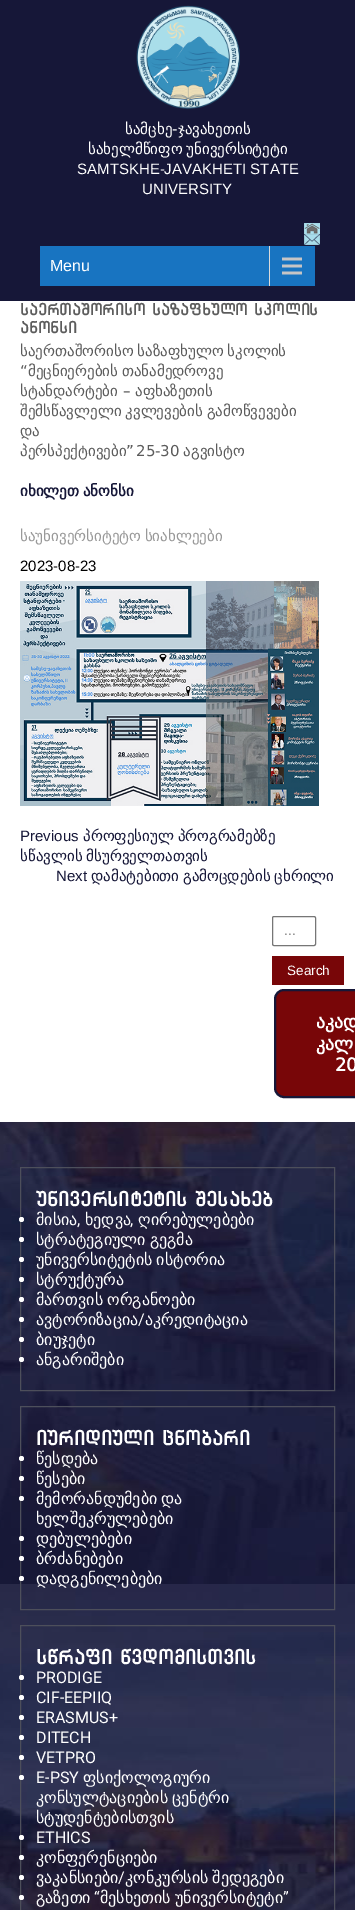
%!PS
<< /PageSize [355 1910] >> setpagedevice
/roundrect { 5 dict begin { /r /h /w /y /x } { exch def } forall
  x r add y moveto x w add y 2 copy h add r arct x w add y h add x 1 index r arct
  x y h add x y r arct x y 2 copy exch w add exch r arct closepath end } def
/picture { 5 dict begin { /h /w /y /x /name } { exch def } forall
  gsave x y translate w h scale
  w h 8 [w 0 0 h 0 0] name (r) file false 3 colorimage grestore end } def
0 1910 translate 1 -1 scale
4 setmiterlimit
1 setgray
0 0 355 1910 rectfill
0.086 0.09 0.22 setrgbcolor
0 0 355 301 rectfill
(img1.rgb) 136 5 104 104 picture
/DejaVuSans-Regular [15 0 0 -15 0 0] selectfont
1 setgray
125 134 moveto (სამცხე-ჯავახეთის) show
88 154 moveto -1 0 32 (სახელმწიფო უნივერსიტეტი) widthshow
/LiberationSans-Regular [15 0 0 -15 0 0] selectfont
77 174 moveto (SAMTSKHE-JAVAKHETI STATE) show
142 194 moveto (UNIVERSITY) show
(img2.rgb) 304 223 16 11 picture
(img3.rgb) 304 234 16 11 picture
0.094 0.455 0.757 setrgbcolor
40 246 275 40 rectfill
(img4.rgb) 269 246 33 40 picture
/LiberationSans-Regular [16 0 0 -16 0 0] selectfont
1 setgray
50 271 moveto (Menu) show
/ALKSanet-Bold [16 0 0 -16 0 0] selectfont
0.361 setgray
20 315 moveto (საერთაშორისო საზაფხულო სკოლის) show
20 333 moveto (ანონსი) show
/DejaVuSans-Regular [15 0 0 -15 0 0] selectfont
20 356 moveto -1 0 32 (საერთაშორისო საზაფხულო სკოლის) widthshow
20 376 moveto -1 0 32 (“მეცნიერების თანამედროვე) widthshow
20 396 moveto (სტანდარტები – აფხაზეთის) show
20 416 moveto -1 0 32 (შემსწავლელი კვლევების გამოწვევები) widthshow
20 436 moveto (და) show
20 456 moveto (პერსპექტივები”) show
136 456 moveto -1 0 32 (25-30 აგვისტო) widthshow
/DejaVuSans-Bold [15 0 0 -15 0 0] selectfont
0.086 0.09 0.22 setrgbcolor
20 496 moveto -1 0 32 (იხილეთ ანონსი) widthshow
/DejaVuSans-Regular [15 0 0 -15 0 0] selectfont
0.6 setgray
20 541 moveto -1 0 32 (საუნივერსიტეტო სიახლეები) widthshow
/LiberationSans-Regular [15 0 0 -15 0 0] selectfont
0 setgray
20 571 moveto (2023-08-23) show
(img5.rgb) 20 581 299 225 picture
0.086 0.09 0.22 setrgbcolor
20 841 moveto (Previous) show
/DejaVuSans-Regular [15 0 0 -15 0 0] selectfont
83 841 moveto -1 0 32 (პროფესიულ პროგრამებზე) widthshow
20 861 moveto -1 0 32 (სწავლის მსურველთათვის) widthshow
/LiberationSans-Regular [15 0 0 -15 0 0] selectfont
56 881 moveto (Next) show
/DejaVuSans-Regular [15 0 0 -15 0 0] selectfont
91 881 moveto -1 0 32 (დამატებითი გამოცდების ცხრილი) widthshow
0.463 setgray
272.5 916.5 43 29 1.5 roundrect stroke
/LiberationSans-Regular [13.5 0 0 -13.5 0 0] selectfont
0.459 setgray
284 935 moveto (...) show
0.471 0.024 0.031 setrgbcolor
272 956 72 29 rectfill
1 setgray
287 975 moveto (Search) show
0.471 0.024 0.031 setrgbcolor
275 990 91 107 9 roundrect gsave fill grestore
0.086 0.09 0.22 setrgbcolor
2 setlinewidth
stroke
/DejaVuSans-Bold [18 0 0 -18 0 0] selectfont
1 setgray
316 1028 moveto (აკად) show
316 1050 moveto (კალ) show
335 1071 moveto (20) show
(img6.rgb) 0 1122 355 788 picture
0.302 0.31 0.357 setrgbcolor
1 setlinewidth
20.5 1167.5 314 223 rectstroke
/ALKSanet-Bold [20 0 0 -20 0 0] selectfont
1 setgray
36 1206 moveto (უნივერსიტეტის შესახებ) show
newpath 21.5 1219.5 2.5 0 360 arc closepath fill
/DejaVuSans-Regular [16 0 0 -16 0 0] selectfont
36 1225 moveto (მისია) show
85 1225 moveto (ხედვა) show
138 1225 moveto (ღირებულებები) show
/Roboto-Regular [16 0 0 -16 0 0] selectfont
77 1225 moveto (,) show
130 1225 moveto (,) show
newpath 21.5 1239.5 2.5 0 360 arc closepath fill
/DejaVuSans-Regular [16 0 0 -16 0 0] selectfont
36 1245 moveto -1 0 32 (სტრატეგიული გეგმა) widthshow
newpath 21.5 1259.5 2.5 0 360 arc closepath fill
36 1265 moveto -1 0 32 (უნივერსიტეტის ისტორია) widthshow
newpath 21.5 1279.5 2.5 0 360 arc closepath fill
36 1285 moveto (სტრუქტურა) show
newpath 21.5 1299.5 2.5 0 360 arc closepath fill
36 1305 moveto -1 0 32 (მართვის ორგანოები) widthshow
newpath 21.5 1319.5 2.5 0 360 arc closepath fill
36 1325 moveto (ავტორიზაცია) show
/Roboto-Regular [16 0 0 -16 0 0] selectfont
138 1325 moveto (/) show
/DejaVuSans-Regular [16 0 0 -16 0 0] selectfont
145 1325 moveto (აკრედიტაცია) show
newpath 21.5 1339.5 2.5 0 360 arc closepath fill
36 1345 moveto (ბიუჯეტი) show
newpath 21.5 1359.5 2.5 0 360 arc closepath fill
36 1365 moveto (ანგარიშები) show
0.302 0.31 0.357 setrgbcolor
20.5 1406.5 314 203 rectstroke
/ALKSanet-Bold [20 0 0 -20 0 0] selectfont
1 setgray
36 1445 moveto (იურიდიული ცნობარი) show
newpath 21.5 1458.5 2.5 0 360 arc closepath fill
/DejaVuSans-Regular [16 0 0 -16 0 0] selectfont
36 1464 moveto (წესდება) show
newpath 21.5 1478.5 2.5 0 360 arc closepath fill
36 1484 moveto (წესები) show
newpath 21.5 1498.5 2.5 0 360 arc closepath fill
36 1504 moveto -1 0 32 (მემორანდუმები და) widthshow
36 1524 moveto (ხელშეკრულებები) show
newpath 21.5 1538.5 2.5 0 360 arc closepath fill
36 1544 moveto (დებულებები) show
newpath 21.5 1558.5 2.5 0 360 arc closepath fill
36 1564 moveto (ბრძანებები) show
newpath 21.5 1578.5 2.5 0 360 arc closepath fill
36 1584 moveto (დადგენილებები) show
0.302 0.31 0.357 setrgbcolor
20.5 1625.5 314 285 rectstroke
/ALKSanet-Bold [20 0 0 -20 0 0] selectfont
1 setgray
36 1664 moveto (სწრაფი წვდომისთვის) show
newpath 21.5 1677.5 2.5 0 360 arc closepath fill
/Roboto-Regular [16 0 0 -16 0 0] selectfont
36 1683 moveto (PRODIGE) show
newpath 21.5 1697.5 2.5 0 360 arc closepath fill
36 1703 moveto (CIF-EEPIIQ) show
newpath 21.5 1717.5 2.5 0 360 arc closepath fill
36 1723 moveto (ERASMUS+) show
newpath 21.5 1737.5 2.5 0 360 arc closepath fill
36 1743 moveto (DITECH) show
newpath 21.5 1757.5 2.5 0 360 arc closepath fill
36 1763 moveto (VETPRO) show
newpath 21.5 1777.5 2.5 0 360 arc closepath fill
36 1783 moveto (E-PSY) show
/DejaVuSans-Regular [16 0 0 -16 0 0] selectfont
83 1783 moveto (ფსიქოლოგიური) show
36 1803 moveto -1 0 32 (კონსულტაციების ცენტრი) widthshow
36 1823 moveto (სტუდენტებისთვის) show
newpath 21.5 1837.5 2.5 0 360 arc closepath fill
/Roboto-Regular [16 0 0 -16 0 0] selectfont
36 1843 moveto (ETHICS) show
newpath 21.5 1857.5 2.5 0 360 arc closepath fill
/DejaVuSans-Regular [16 0 0 -16 0 0] selectfont
36 1863 moveto (კონფერენციები) show
newpath 21.5 1877.5 2.5 0 360 arc closepath fill
36 1883 moveto (ვაკანსიები) show
/Roboto-Regular [16 0 0 -16 0 0] selectfont
118 1883 moveto (/) show
/DejaVuSans-Regular [16 0 0 -16 0 0] selectfont
125 1883 moveto -1 0 32 (კონკურსის შედეგები) widthshow
36 1903 moveto (გაზეთი) show
/Roboto-Regular [16 0 0 -16 0 0] selectfont
94 1903 moveto (“) show
/DejaVuSans-Regular [16 0 0 -16 0 0] selectfont
100 1903 moveto -1 0 32 (მესხეთის უნივერსიტეტი) widthshow
/Roboto-Regular [16 0 0 -16 0 0] selectfont
283 1903 moveto (”) show
newpath 21.5 1897.5 2.5 0 360 arc closepath fill
showpage
